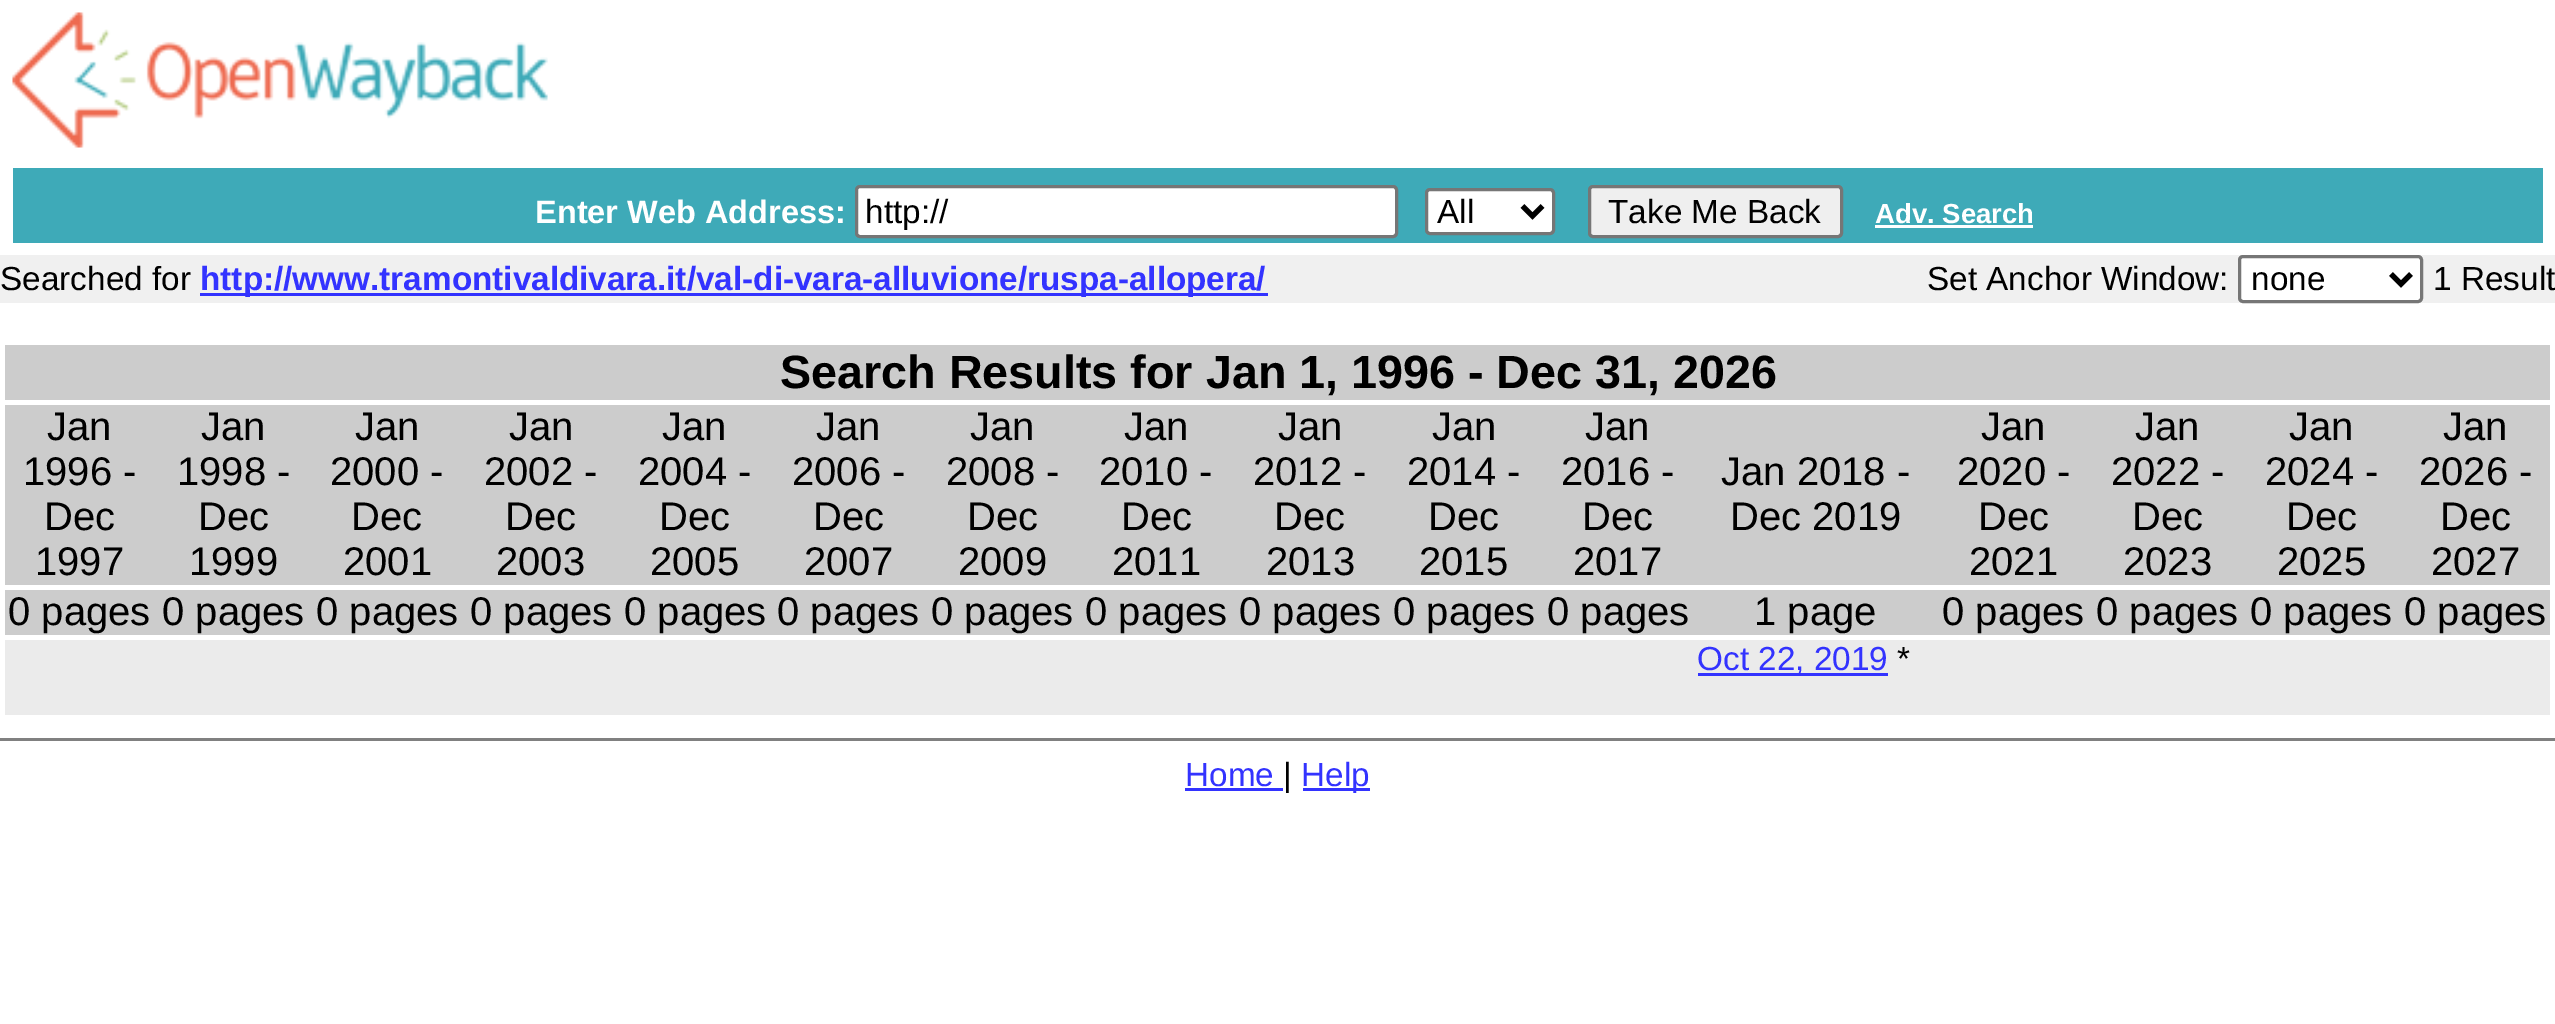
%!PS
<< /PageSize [2555 1024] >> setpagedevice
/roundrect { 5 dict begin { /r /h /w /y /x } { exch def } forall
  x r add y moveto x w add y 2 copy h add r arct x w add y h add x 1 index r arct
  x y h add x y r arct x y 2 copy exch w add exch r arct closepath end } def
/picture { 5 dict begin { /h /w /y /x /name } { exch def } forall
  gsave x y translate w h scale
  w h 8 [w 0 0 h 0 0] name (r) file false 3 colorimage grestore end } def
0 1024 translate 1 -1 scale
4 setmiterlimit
1 setgray
0 0 2555 1024 rectfill
(img1.rgb) 12 12 536 136 picture
0.243 0.667 0.722 setrgbcolor
13 168 2530 75 rectfill
/LiberationSans-Bold [32.5 0 0 -32.5 0 0] selectfont
1 setgray
535 223 moveto (Enter Web Address:) show
856.5 186.5 540 50 3.5 roundrect gsave fill grestore
0.463 setgray
3 setlinewidth
stroke
/LiberationSans-Regular [33.3 0 0 -33.3 0 0] selectfont
0 setgray
865 223 moveto (http://) show
1 setgray
1426.5 189.5 127 44 3.5 roundrect gsave fill grestore
0.463 setgray
stroke
0 setgray
5 setlinewidth
newpath 1522.5 206 moveto 1532.5 216 lineto 1542.5 206 lineto stroke
1437 223 moveto (All) show
0.937 setgray
1589.5 186.5 252 50 3.5 roundrect gsave fill grestore
0.463 setgray
3 setlinewidth
stroke
0 setgray
1608 223 moveto (Take Me Back) show
/LiberationSans-Bold [27.5 0 0 -27.5 0 0] selectfont
1 setgray
1875 223 moveto (Adv. Search) show
1875 225 158 3 rectfill
0.941 setgray
0 255 2555 48 rectfill
/LiberationSans-Regular [33.3 0 0 -33.3 0 0] selectfont
0 setgray
0 290 moveto (Searched for) show
0.2 0.2 1 setrgbcolor
200 293 1068 3 rectfill
/LiberationSans-Bold [33.3 0 0 -33.3 0 0] selectfont
200 290 moveto (http://www.tramontivaldivara.it/val-di-vara-alluvione/ruspa-allopera/) show
/LiberationSans-Regular [33.3 0 0 -33.3 0 0] selectfont
0 setgray
1927 290 moveto (Set Anchor Window:) show
1 setgray
2239.5 256.5 182 45 3.5 roundrect gsave fill grestore
0.463 setgray
stroke
0 setgray
5 setlinewidth
newpath 2391 274 moveto 2401 284 lineto 2411 274 lineto stroke
2251 290 moveto (none) show
2433 290 moveto (1 Result) show
0.8 setgray
5 345 2545 55 rectfill
/LiberationSans-Bold [46.7 0 0 -46.7 0 0] selectfont
0 setgray
780 388 moveto (Search Results for Jan 1, 1996 - Dec 31, 2026) show
0.8 setgray
5 405 2545 180 rectfill
/LiberationSans-Regular [40 0 0 -40 0 0] selectfont
0 setgray
47 440 moveto (Jan) show
23 485 moveto (1996 -) show
44 530 moveto (Dec) show
35 575 moveto (1997) show
201 440 moveto (Jan) show
177 485 moveto (1998 -) show
198 530 moveto (Dec) show
189 575 moveto (1999) show
355 440 moveto (Jan) show
330 485 moveto (2000 -) show
351 530 moveto (Dec) show
343 575 moveto (2001) show
509 440 moveto (Jan) show
484 485 moveto (2002 -) show
505 530 moveto (Dec) show
496 575 moveto (2003) show
662 440 moveto (Jan) show
638 485 moveto (2004 -) show
659 530 moveto (Dec) show
650 575 moveto (2005) show
816 440 moveto (Jan) show
792 485 moveto (2006 -) show
813 530 moveto (Dec) show
804 575 moveto (2007) show
970 440 moveto (Jan) show
946 485 moveto (2008 -) show
967 530 moveto (Dec) show
958 575 moveto (2009) show
1124 440 moveto (Jan) show
1099 485 moveto (2010 -) show
1121 530 moveto (Dec) show
1112 575 moveto (2011) show
1278 440 moveto (Jan) show
1253 485 moveto (2012 -) show
1274 530 moveto (Dec) show
1266 575 moveto (2013) show
1432 440 moveto (Jan) show
1407 485 moveto (2014 -) show
1428 530 moveto (Dec) show
1419 575 moveto (2015) show
1585 440 moveto (Jan) show
1561 485 moveto (2016 -) show
1582 530 moveto (Dec) show
1573 575 moveto (2017) show
1721 485 moveto (Jan 2018 -) show
1730 530 moveto (Dec 2019) show
1981 440 moveto (Jan) show
1957 485 moveto (2020 -) show
1978 530 moveto (Dec) show
1969 575 moveto (2021) show
2135 440 moveto (Jan) show
2111 485 moveto (2022 -) show
2132 530 moveto (Dec) show
2123 575 moveto (2023) show
2289 440 moveto (Jan) show
2265 485 moveto (2024 -) show
2286 530 moveto (Dec) show
2277 575 moveto (2025) show
2443 440 moveto (Jan) show
2419 485 moveto (2026 -) show
2440 530 moveto (Dec) show
2431 575 moveto (2027) show
0.8 setgray
5 590 2545 45 rectfill
0 setgray
8 625 moveto (0 pages) show
162 625 moveto (0 pages) show
316 625 moveto (0 pages) show
470 625 moveto (0 pages) show
624 625 moveto (0 pages) show
777 625 moveto (0 pages) show
931 625 moveto (0 pages) show
1085 625 moveto (0 pages) show
1239 625 moveto (0 pages) show
1393 625 moveto (0 pages) show
1547 625 moveto (0 pages) show
1754 625 moveto (1 page) show
1942 625 moveto (0 pages) show
2096 625 moveto (0 pages) show
2250 625 moveto (0 pages) show
2404 625 moveto (0 pages) show
0.922 setgray
5 640 2545 75 rectfill
0.2 0.2 1 setrgbcolor
1698 673 190 3 rectfill
/LiberationSans-Regular [33.3 0 0 -33.3 0 0] selectfont
1697 670 moveto (Oct 22, 2019) show
0 setgray
1897 670 moveto (*) show
0.502 setgray
0 738 2555 3 rectfill
0.2 0.2 1 setrgbcolor
1185 786 moveto (Home) show
1185 788 98 3 rectfill
0 setgray
1283 786 moveto (|) show
0.2 0.2 1 setrgbcolor
1303 788 67 3 rectfill
1301 786 moveto (Help) show
showpage
